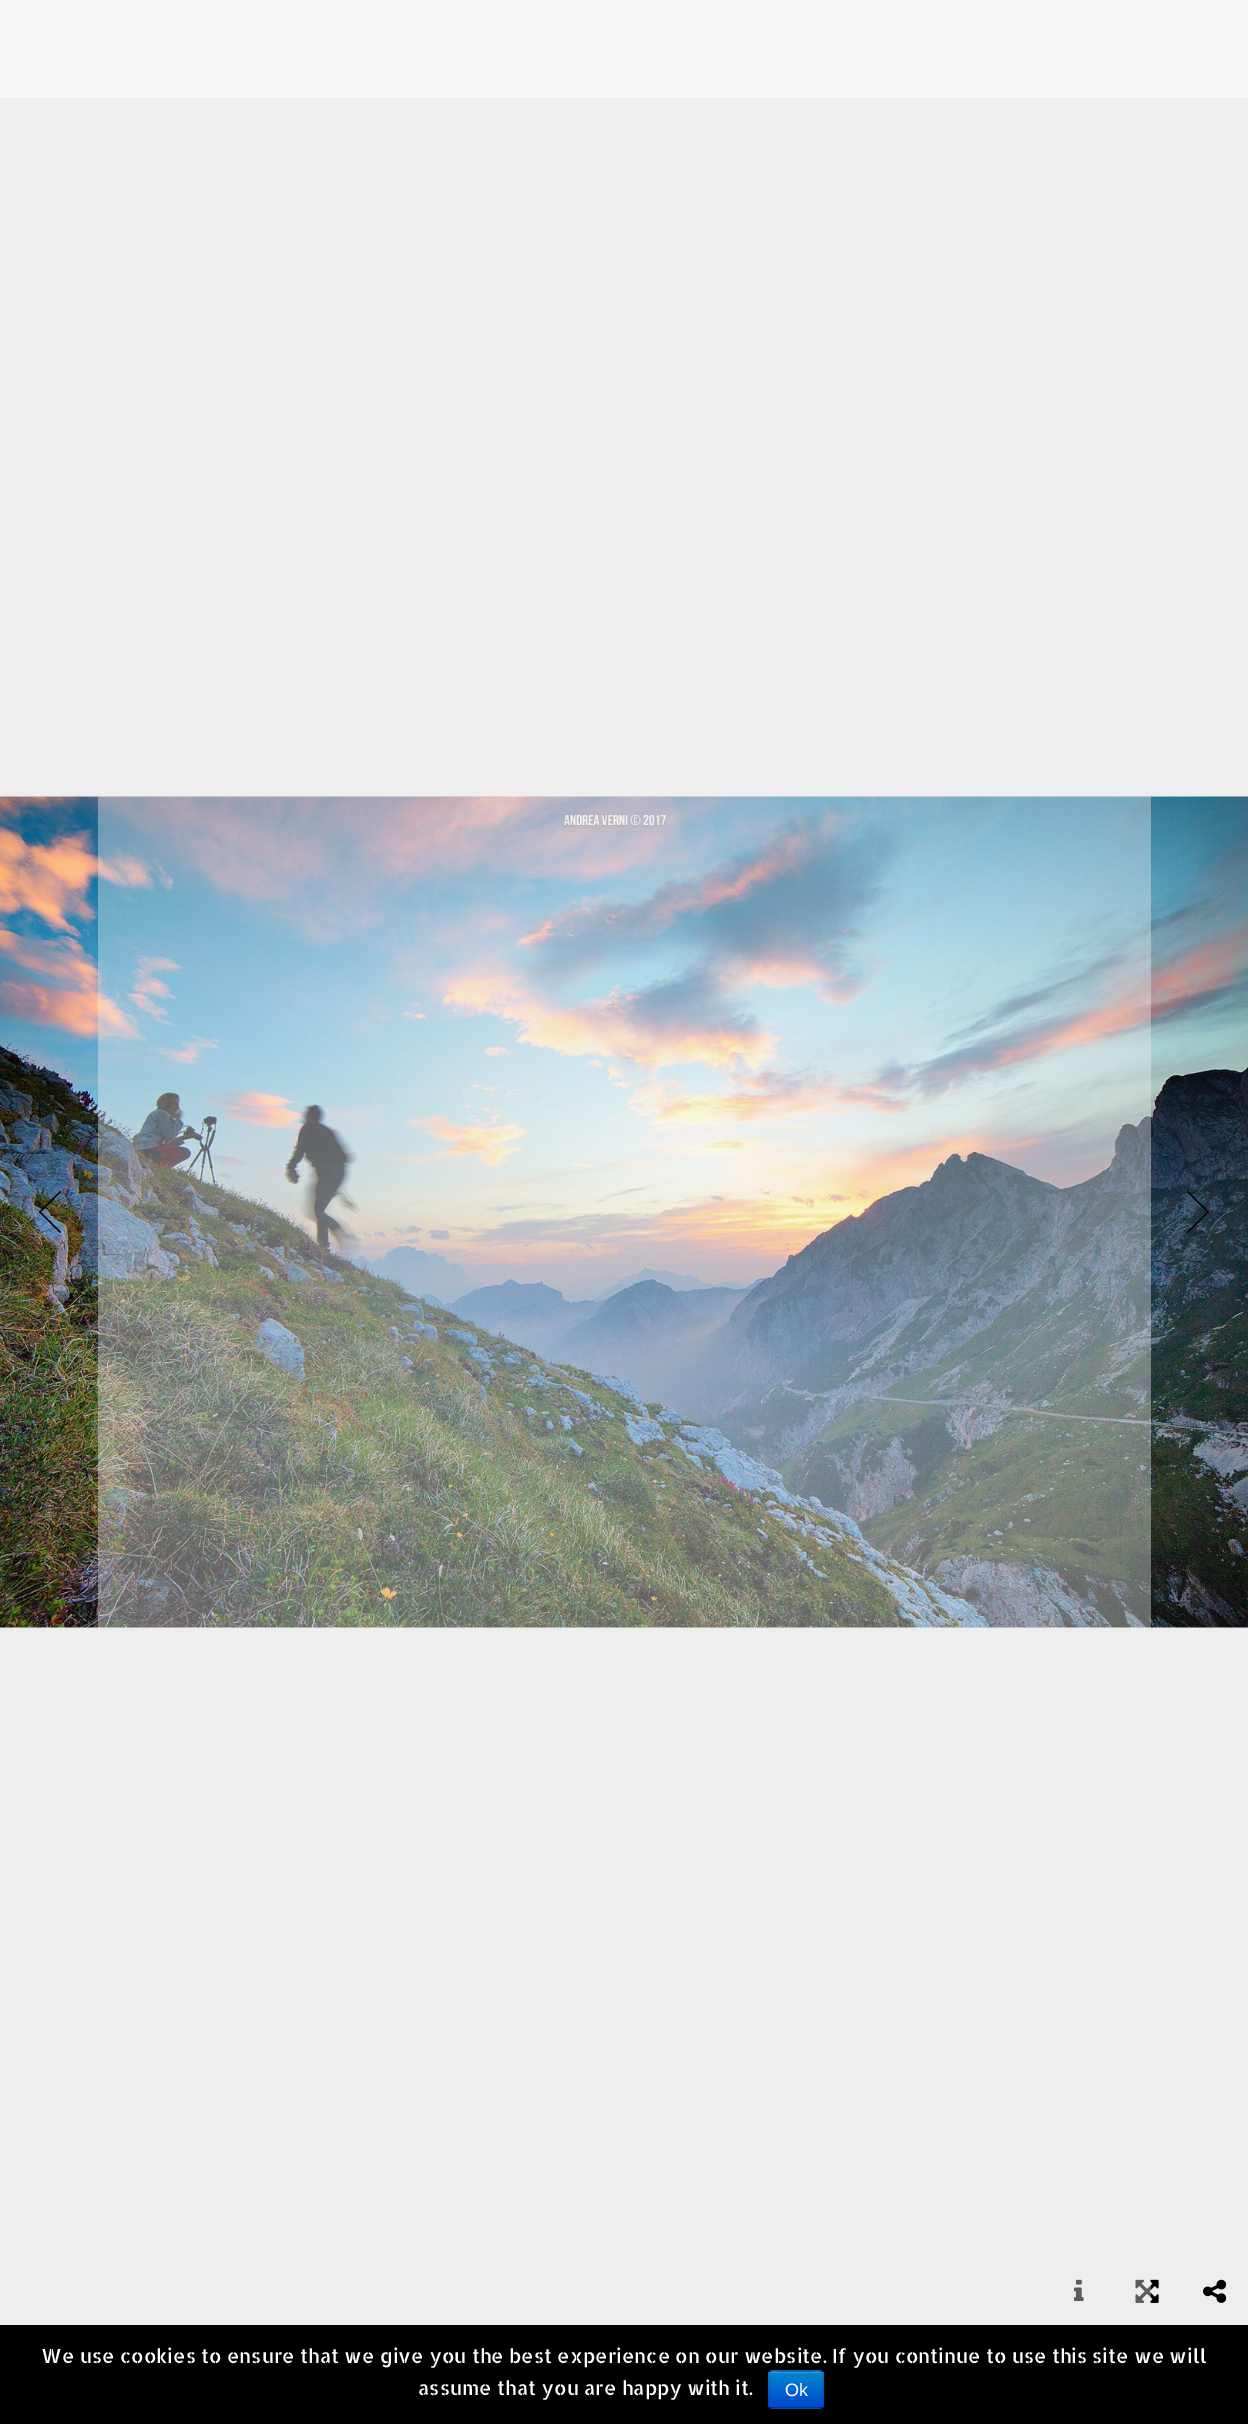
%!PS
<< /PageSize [1248 2424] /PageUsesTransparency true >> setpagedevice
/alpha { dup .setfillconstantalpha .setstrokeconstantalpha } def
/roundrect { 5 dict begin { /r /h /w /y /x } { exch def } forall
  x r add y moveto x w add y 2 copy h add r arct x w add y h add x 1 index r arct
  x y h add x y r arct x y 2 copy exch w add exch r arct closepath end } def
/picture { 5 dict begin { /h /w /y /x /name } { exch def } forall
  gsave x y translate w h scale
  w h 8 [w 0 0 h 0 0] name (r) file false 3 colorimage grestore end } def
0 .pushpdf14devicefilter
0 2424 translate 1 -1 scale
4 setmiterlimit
0.973 setgray
0 0 1248 2424 rectfill
0.933 setgray
0 98 1248 2227 rectfill
(img1.rgb) 0 796 1248 832 picture
0 setgray
newpath 40 1211 moveto 61 1232 lineto 60 1233 lineto 39 1212 lineto closepath fill
newpath 60 1191 moveto 61 1192 lineto 40 1213 lineto 39 1212 lineto closepath fill
newpath 1188 1191 moveto 1209 1212 lineto 1208 1213 lineto 1187 1192 lineto closepath fill
newpath 1208 1211 moveto 1209 1212 lineto 1188 1233 lineto 1187 1232 lineto closepath fill
(img2.rgb) 1074 2279 10 22 picture
(img3.rgb) 1135 2279 24 24 picture
(img4.rgb) 1203 2279 24 24 picture
0.39 alpha
0.933 setgray
98 796 1053 1507 rectfill
1 alpha
0 setgray
0 2325 1248 99 rectfill
/AllertaStencil-Regular [19.5 0 0 -19.5 0 0] selectfont
1 setgray
41 2363 moveto (We use cookies to ensure that we give you the best experience on our website. If you continue to use this site we will) show
418 2395 moveto (assume that you are happy with it.) show
0 0.427 0.8 setrgbcolor
768 2370 56 39 5 roundrect fill
gsave
768 2370 56 39 5 roundrect clip newpath
gsave newpath 768 2372 moveto 824 2372 lineto 824 2408 lineto 768 2408 lineto closepath clip newpath
<< /ShadingType 2 /ColorSpace /DeviceRGB /Coords [796 2372 796 2408] /Extend [true true] /Function << /FunctionType 2 /Domain [0 1] /C0 [0 0.533 0.8] /C1 [0 0.267 0.8] /N 1 >> >> shfill grestore
grestore
0.2 0.624 0.839 setrgbcolor
newpath 772 2373 moveto 819 2373 lineto 821 2373 822 2374 822 2376 curveto 822 2370 816 2372 811 2372 curveto 781 2372 lineto 776 2372 770 2370 770 2376 curveto 770 2374 771 2373 772 2373 curveto closepath fill
0.25 alpha
0 setgray
1.5 setlinewidth
newpath 821.5 2407 moveto 821 2408 820 2408 819 2408 curveto 772.5 2408 lineto 771.5 2408 770.5 2408 770 2407 curveto stroke
0.1 alpha
newpath 770 2407 moveto 769 2406.5 769 2405.5 769 2404.5 curveto 769 2374.5 lineto 769 2373.5 769 2372.5 770 2372 curveto 770.5 2371 771.5 2371 772.5 2371 curveto 819 2371 lineto 820 2371 821 2371 821.5 2372 curveto 822.5 2372.5 823 2373.5 823 2374.5 curveto 823 2404.5 lineto 823 2405.5 822.5 2406.5 821.5 2407 curveto stroke
/LiberationSans-Regular [18 0 0 -18 0 0] selectfont
1 alpha
1 setgray
785 2396 moveto (Ok) show
.poppdf14devicefilter showpage
